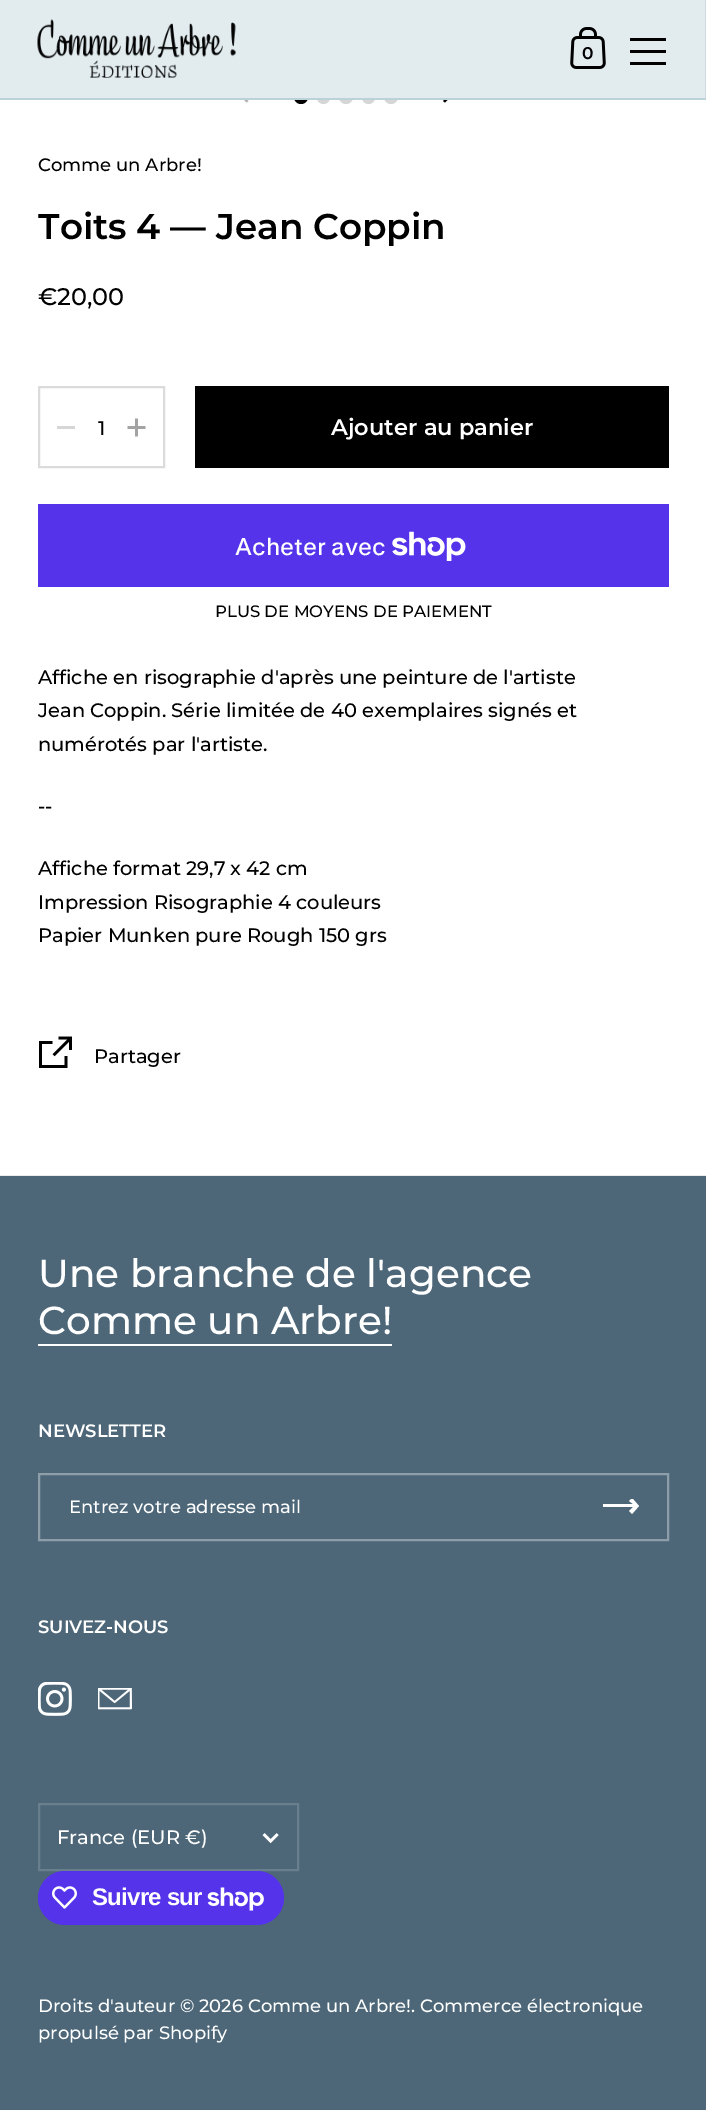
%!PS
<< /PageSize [706 2110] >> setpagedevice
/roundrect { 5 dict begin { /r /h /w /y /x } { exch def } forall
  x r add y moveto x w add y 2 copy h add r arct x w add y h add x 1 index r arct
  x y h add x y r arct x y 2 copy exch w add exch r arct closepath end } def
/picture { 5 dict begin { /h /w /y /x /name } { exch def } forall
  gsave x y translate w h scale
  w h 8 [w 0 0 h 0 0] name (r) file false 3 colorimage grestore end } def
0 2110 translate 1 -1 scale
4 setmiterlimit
1 setgray
0 0 706 2110 rectfill
0.702 setgray
newpath 246.5 102.5 moveto 248.5 101 lineto 244.5 97 lineto 272.5 97 lineto 272.5 95 lineto 244.5 95 lineto 248.5 91 lineto 246.5 89.5 lineto 240.5 96 lineto closepath fill
0 setgray
newpath 301 97 7 0 360 arc closepath fill
0.839 setgray
317 90 13 14 6.5 roundrect fill
newpath 346 97 7 0 360 arc closepath fill
362 90 13 14 6.5 roundrect fill
newpath 391 97 7 0 360 arc closepath fill
0 setgray
newpath 445 89.5 moveto 443 91 lineto 447 95 lineto 419 95 lineto 419 97 lineto 447 97 lineto 443 101 lineto 445 102.5 lineto 451 96 lineto closepath fill
0.733 0.824 0.851 setrgbcolor
0 98 706 2 rectfill
0.886 0.925 0.937 setrgbcolor
0 0 705 98 rectfill
0.816 0.851 0.863 setrgbcolor
705 0 1 98 rectfill
(img1.rgb) 37 19 199 59 picture
(img2.rgb) 570 27 36 42 picture
/Montserrat-SemiBold [17 0 0 -17 0 0] selectfont
0 setgray
582 59 moveto (0) show
630 38 36 3 rectfill
630 50 36 3 rectfill
630 62 36 3 rectfill
0.922 setgray
0 1175 706 1 rectfill
/Montserrat-Medium [18 0 0 -18 0 0] selectfont
0 setgray
38 171 moveto (Comme un Arbre!) show
/Montserrat-SemiBold [35.75 0 0 -35.75 0 0] selectfont
38 239 moveto (Toits 4 — Jean Coppin) show
/Montserrat-Medium [24 0 0 -24 0 0] selectfont
38 305 moveto (€20,00) show
0.859 setgray
2 setlinewidth
39 387 125 80 rectstroke
0.839 setgray
57 426 18 3 rectfill
/Montserrat-Medium [19.5 0 0 -19.5 0 0] selectfont
0 setgray
98 435 moveto (1) show
(img3.rgb) 127 418 19 19 picture
195 386 474 82 rectfill
/Montserrat-SemiBold [22.5 0 0 -22.5 0 0] selectfont
1 setgray
331 435 moveto (Ajouter au panier) show
0.329 0.2 0.922 setrgbcolor
38 504 631 83 rectfill
/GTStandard-Medium [24 0 0 -24 0 0] selectfont
1 setgray
235 555 moveto (Acheter avec) show
(img4.rgb) 392 531 74 30 picture
/Montserrat-Medium [16.5 0 0 -16.5 0 0] selectfont
0 setgray
215 617 moveto (PLUS DE MOYENS DE PAIEMENT) show
/Montserrat-Medium [19.5 0 0 -19.5 0 0] selectfont
38 684 moveto (Affiche en risographie d'après une peinture de l'artiste) show
38 717 moveto (Jean Coppin. Série limitée de 40 exemplaires signés et) show
38 751 moveto (numérotés par l'artiste.) show
38 813 moveto (--) show
38 875 moveto (Affiche format 29,7 x 42 cm) show
38 909 moveto (Impression Risographie 4 couleurs) show
38 942 moveto (Papier Munken pure Rough 150 grs) show
(img5.rgb) 39 1036 33 32 picture
94 1063 moveto (Partager) show
0.302 0.404 0.475 setrgbcolor
0 1176 706 934 rectfill
/Montserrat-Medium [39 0 0 -39 0 0] selectfont
1 setgray
38 1287 moveto (Une branche de l'agence) show
38 1334 moveto (Comme un Arbre!) show
38 1344 354 2 rectfill
/Montserrat-SemiBold [18 0 0 -18 0 0] selectfont
38 1437 moveto (NEWSLETTER) show
0.553 0.62 0.663 setrgbcolor
39 1474 629 66 rectstroke
/Montserrat-Medium [18 0 0 -18 0 0] selectfont
1 setgray
69 1513 moveto (Entrez votre adresse mail) show
gsave
603 1499 36 16 rectclip
newpath 633 1507 moveto 629 1511 lineto 632 1514 lineto 639 1506 lineto 632 1498 lineto 629 1501 lineto 633 1504 lineto 588 1504 lineto 588 1507 lineto closepath eofill
grestore
/Montserrat-SemiBold [18 0 0 -18 0 0] selectfont
38 1633 moveto (SUIVEZ-NOUS) show
(img6.rgb) 38 1682 34 34 picture
(img7.rgb) 98 1688 34 22 picture
(img8.rgb) 262 1833 17 11 picture
0.412 0.498 0.557 setrgbcolor
39 1804 259 66 rectstroke
/Montserrat-Medium [19.5 0 0 -19.5 0 0] selectfont
1 setgray
57 1844 moveto (France \(EUR €\)) show
0.329 0.2 0.922 setrgbcolor
38 1871 246 54 27 roundrect fill
(img9.rgb) 52 1886 25 23 picture
/LiberationSans-Bold [24 0 0 -24 0 0] selectfont
1 setgray
92 1905 moveto -0.75 0 (Suivre sur) ashow
(img10.rgb) 207 1887 57 24 picture
/Montserrat-Medium [18 0 0 -18 0 0] selectfont
38 2012 moveto (Droits d'auteur © 2026 Comme un Arbre!. Commerce électronique) show
38 2039 moveto (propulsé par Shopify) show
showpage
